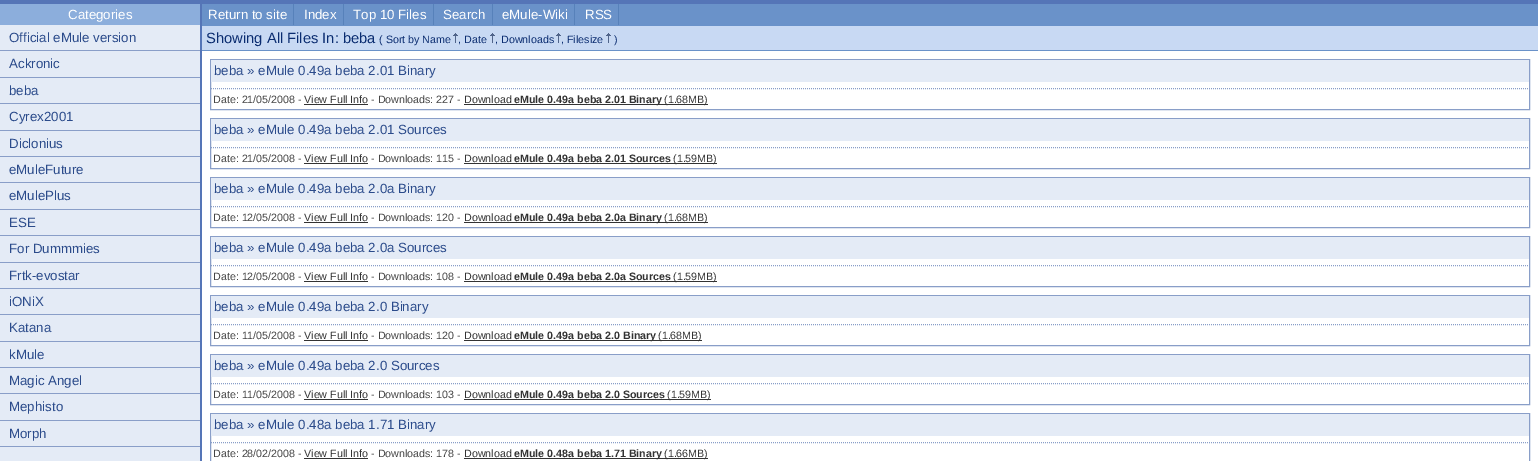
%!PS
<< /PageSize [1538 461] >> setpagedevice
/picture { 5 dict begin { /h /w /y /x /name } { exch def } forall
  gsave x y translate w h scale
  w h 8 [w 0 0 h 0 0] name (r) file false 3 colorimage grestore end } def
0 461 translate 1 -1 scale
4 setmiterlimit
1 setgray
0 0 1538 461 rectfill
0.333 0.459 0.718 setrgbcolor
200 0 2 461 rectfill
0.549 0.682 0.863 setrgbcolor
0 4 200 21 rectfill
/LiberationSans-Regular [13.3 0 0 -13.3 0 0] selectfont
1 setgray
68 19 moveto (Categories) show
0.894 0.922 0.965 setrgbcolor
0 25 200 25 rectfill
0.537 0.62 0.784 setrgbcolor
0 50 200 1 rectfill
0.169 0.294 0.545 setrgbcolor
9 42 moveto (Official eMule version) show
0.894 0.922 0.965 setrgbcolor
0 51 200 26 rectfill
0.537 0.62 0.784 setrgbcolor
0 77 200 1 rectfill
0.169 0.294 0.545 setrgbcolor
9 68 moveto (Ackronic) show
0.894 0.922 0.965 setrgbcolor
0 78 200 25 rectfill
0.537 0.62 0.784 setrgbcolor
0 103 200 1 rectfill
0.169 0.294 0.545 setrgbcolor
9 95 moveto (beba) show
0.894 0.922 0.965 setrgbcolor
0 104 200 26 rectfill
0.537 0.62 0.784 setrgbcolor
0 130 200 1 rectfill
0.169 0.294 0.545 setrgbcolor
9 121 moveto (Cyrex2001) show
0.894 0.922 0.965 setrgbcolor
0 131 200 25 rectfill
0.537 0.62 0.784 setrgbcolor
0 156 200 1 rectfill
0.169 0.294 0.545 setrgbcolor
9 148 moveto (Diclonius) show
0.894 0.922 0.965 setrgbcolor
0 157 200 25 rectfill
0.537 0.62 0.784 setrgbcolor
0 182 200 1 rectfill
0.169 0.294 0.545 setrgbcolor
9 174 moveto (eMuleFuture) show
0.894 0.922 0.965 setrgbcolor
0 183 200 26 rectfill
0.537 0.62 0.784 setrgbcolor
0 209 200 1 rectfill
0.169 0.294 0.545 setrgbcolor
9 200 moveto (eMulePlus) show
0.894 0.922 0.965 setrgbcolor
0 210 200 25 rectfill
0.537 0.62 0.784 setrgbcolor
0 235 200 1 rectfill
0.169 0.294 0.545 setrgbcolor
9 227 moveto (ESE) show
0.894 0.922 0.965 setrgbcolor
0 236 200 26 rectfill
0.537 0.62 0.784 setrgbcolor
0 262 200 1 rectfill
0.169 0.294 0.545 setrgbcolor
9 253 moveto (For Dummmies) show
0.894 0.922 0.965 setrgbcolor
0 263 200 25 rectfill
0.537 0.62 0.784 setrgbcolor
0 288 200 1 rectfill
0.169 0.294 0.545 setrgbcolor
9 280 moveto (Frtk-evostar) show
0.894 0.922 0.965 setrgbcolor
0 289 200 25 rectfill
0.537 0.62 0.784 setrgbcolor
0 314 200 1 rectfill
0.169 0.294 0.545 setrgbcolor
9 306 moveto (iONiX) show
0.894 0.922 0.965 setrgbcolor
0 315 200 26 rectfill
0.537 0.62 0.784 setrgbcolor
0 341 200 1 rectfill
0.169 0.294 0.545 setrgbcolor
9 332 moveto (Katana) show
0.894 0.922 0.965 setrgbcolor
0 342 200 25 rectfill
0.537 0.62 0.784 setrgbcolor
0 367 200 1 rectfill
0.169 0.294 0.545 setrgbcolor
9 359 moveto (kMule) show
0.894 0.922 0.965 setrgbcolor
0 368 200 25 rectfill
0.537 0.62 0.784 setrgbcolor
0 393 200 1 rectfill
0.169 0.294 0.545 setrgbcolor
9 385 moveto (Magic Angel) show
0.894 0.922 0.965 setrgbcolor
0 394 200 26 rectfill
0.537 0.62 0.784 setrgbcolor
0 420 200 1 rectfill
0.169 0.294 0.545 setrgbcolor
9 411 moveto (Mephisto) show
0.894 0.922 0.965 setrgbcolor
0 421 200 25 rectfill
0.537 0.62 0.784 setrgbcolor
0 446 200 1 rectfill
0.169 0.294 0.545 setrgbcolor
9 438 moveto (Morph) show
0.894 0.922 0.965 setrgbcolor
0 447 200 14 rectfill
0.333 0.459 0.718 setrgbcolor
0 0 1538 4 rectfill
0.416 0.573 0.788 setrgbcolor
202 4 1336 22 rectfill
1 setgray
208 19 moveto (Return to site) show
0.341 0.506 0.729 setrgbcolor
293 4 1 21 rectfill
1 setgray
304 19 moveto (Index) show
0.341 0.506 0.729 setrgbcolor
343 4 1 21 rectfill
1 setgray
353 19 moveto (Top 10 Files) show
0.341 0.506 0.729 setrgbcolor
433 4 1 21 rectfill
1 setgray
443 19 moveto (Search) show
0.341 0.506 0.729 setrgbcolor
492 4 1 21 rectfill
1 setgray
502 19 moveto (eMule-Wiki) show
0.341 0.506 0.729 setrgbcolor
574 4 1 21 rectfill
1 setgray
585 19 moveto (RSS) show
0.341 0.506 0.729 setrgbcolor
618 4 1 21 rectfill
0.784 0.851 0.953 setrgbcolor
202 26 1336 24 rectfill
0.416 0.573 0.788 setrgbcolor
202 50 1336 1 rectfill
/LiberationSans-Regular [14.75 0 0 -14.75 0 0] selectfont
0.039 0.173 0.439 setrgbcolor
206 43 moveto (Showing All Files In: beba) show
/LiberationSans-Regular [10.7 0 0 -10.7 0 0] selectfont
379 43 moveto (\( Sort by Name) show
(img1.rgb) 453 33 5 10 picture
458 43 moveto (, Date) show
(img1.rgb) 490 33 5 10 picture
495 43 moveto (, Downloads) show
(img1.rgb) 556 33 5 10 picture
561 43 moveto (, Filesize) show
(img1.rgb) 606 33 5 10 picture
614 43 moveto (\)) show
0.537 0.62 0.784 setrgbcolor
210.5 59.5 1319 50 rectstroke
0.894 0.922 0.965 setrgbcolor
211 60 1318 22 rectfill
/LiberationSans-Regular [13.3 0 0 -13.3 0 0] selectfont
0.169 0.294 0.545 setrgbcolor
214 75 moveto (beba » eMule 0.49a beba 2.01 Binary) show
0.537 0.62 0.784 setrgbcolor
[1 1] 0 setdash
newpath 211 88.5 moveto 1529 88.5 lineto stroke
/LiberationSans-Regular [10.7 0 0 -10.7 0 0] selectfont
0.267 setgray
213 103 moveto (Date: 21/05/2008 -) show
0.2 setgray
304 103 moveto (View Full Info) show
304 104 64 1 rectfill
0.267 setgray
371 103 moveto (- Downloads: 227 -) show
0.2 setgray
464 103 moveto (Download) show
464 104 197 1 rectfill
/LiberationSans-Bold [10.7 0 0 -10.7 0 0] selectfont
514 103 moveto (eMule 0.49a beba 2.01 Binary) show
661 104 47 1 rectfill
/LiberationSans-Regular [10.7 0 0 -10.7 0 0] selectfont
664 103 moveto (\(1.68MB\)) show
0.537 0.62 0.784 setrgbcolor
[] 0 setdash
210.5 118.5 1319 50 rectstroke
0.894 0.922 0.965 setrgbcolor
211 119 1318 22 rectfill
/LiberationSans-Regular [13.3 0 0 -13.3 0 0] selectfont
0.169 0.294 0.545 setrgbcolor
214 134 moveto (beba » eMule 0.49a beba 2.01 Sources) show
0.537 0.62 0.784 setrgbcolor
[1 1] 0 setdash
newpath 211 147.5 moveto 1529 147.5 lineto stroke
/LiberationSans-Regular [10.7 0 0 -10.7 0 0] selectfont
0.267 setgray
213 162 moveto (Date: 21/05/2008 -) show
0.2 setgray
304 162 moveto (View Full Info) show
304 163 64 1 rectfill
0.267 setgray
371 162 moveto (- Downloads: 115 -) show
0.2 setgray
464 162 moveto (Download) show
/LiberationSans-Bold [10.7 0 0 -10.7 0 0] selectfont
514 162 moveto (eMule 0.49a beba 2.01 Sources) show
464 163 253 1 rectfill
/LiberationSans-Regular [10.7 0 0 -10.7 0 0] selectfont
673 162 moveto (\(1.59MB\)) show
0.537 0.62 0.784 setrgbcolor
[] 0 setdash
210.5 177.5 1319 50 rectstroke
0.894 0.922 0.965 setrgbcolor
211 178 1318 22 rectfill
/LiberationSans-Regular [13.3 0 0 -13.3 0 0] selectfont
0.169 0.294 0.545 setrgbcolor
214 193 moveto (beba » eMule 0.49a beba 2.0a Binary) show
0.537 0.62 0.784 setrgbcolor
[1 1] 0 setdash
newpath 211 206.5 moveto 1529 206.5 lineto stroke
/LiberationSans-Regular [10.7 0 0 -10.7 0 0] selectfont
0.267 setgray
213 221 moveto (Date: 12/05/2008 -) show
0.2 setgray
304 221 moveto (View Full Info) show
304 222 64 1 rectfill
0.267 setgray
371 221 moveto (- Downloads: 120 -) show
0.2 setgray
464 221 moveto (Download) show
464 222 197 1 rectfill
/LiberationSans-Bold [10.7 0 0 -10.7 0 0] selectfont
514 221 moveto (eMule 0.49a beba 2.0a Binary) show
661 222 47 1 rectfill
/LiberationSans-Regular [10.7 0 0 -10.7 0 0] selectfont
664 221 moveto (\(1.68MB\)) show
0.537 0.62 0.784 setrgbcolor
[] 0 setdash
210.5 236.5 1319 50 rectstroke
0.894 0.922 0.965 setrgbcolor
211 237 1318 22 rectfill
/LiberationSans-Regular [13.3 0 0 -13.3 0 0] selectfont
0.169 0.294 0.545 setrgbcolor
214 252 moveto (beba » eMule 0.49a beba 2.0a Sources) show
0.537 0.62 0.784 setrgbcolor
[1 1] 0 setdash
newpath 211 265.5 moveto 1529 265.5 lineto stroke
/LiberationSans-Regular [10.7 0 0 -10.7 0 0] selectfont
0.267 setgray
213 280 moveto (Date: 12/05/2008 -) show
0.2 setgray
304 280 moveto (View Full Info) show
304 281 64 1 rectfill
0.267 setgray
371 280 moveto (- Downloads: 108 -) show
0.2 setgray
464 280 moveto (Download) show
/LiberationSans-Bold [10.7 0 0 -10.7 0 0] selectfont
514 280 moveto (eMule 0.49a beba 2.0a Sources) show
464 281 253 1 rectfill
/LiberationSans-Regular [10.7 0 0 -10.7 0 0] selectfont
673 280 moveto (\(1.59MB\)) show
0.537 0.62 0.784 setrgbcolor
[] 0 setdash
210.5 295.5 1319 50 rectstroke
0.894 0.922 0.965 setrgbcolor
211 296 1318 22 rectfill
/LiberationSans-Regular [13.3 0 0 -13.3 0 0] selectfont
0.169 0.294 0.545 setrgbcolor
214 311 moveto (beba » eMule 0.49a beba 2.0 Binary) show
0.537 0.62 0.784 setrgbcolor
[1 1] 0 setdash
newpath 211 324.5 moveto 1529 324.5 lineto stroke
/LiberationSans-Regular [10.7 0 0 -10.7 0 0] selectfont
0.267 setgray
213 339 moveto (Date: 11/05/2008 -) show
0.2 setgray
304 339 moveto (View Full Info) show
304 340 64 1 rectfill
0.267 setgray
371 339 moveto (- Downloads: 120 -) show
0.2 setgray
464 339 moveto (Download) show
464 340 238 1 rectfill
/LiberationSans-Bold [10.7 0 0 -10.7 0 0] selectfont
514 339 moveto (eMule 0.49a beba 2.0 Binary) show
/LiberationSans-Regular [10.7 0 0 -10.7 0 0] selectfont
658 339 moveto (\(1.68MB\)) show
0.537 0.62 0.784 setrgbcolor
[] 0 setdash
210.5 354.5 1319 50 rectstroke
0.894 0.922 0.965 setrgbcolor
211 355 1318 22 rectfill
/LiberationSans-Regular [13.3 0 0 -13.3 0 0] selectfont
0.169 0.294 0.545 setrgbcolor
214 370 moveto (beba » eMule 0.49a beba 2.0 Sources) show
0.537 0.62 0.784 setrgbcolor
[1 1] 0 setdash
newpath 211 383.5 moveto 1529 383.5 lineto stroke
/LiberationSans-Regular [10.7 0 0 -10.7 0 0] selectfont
0.267 setgray
213 398 moveto (Date: 11/05/2008 -) show
0.2 setgray
304 398 moveto (View Full Info) show
304 399 64 1 rectfill
0.267 setgray
371 398 moveto (- Downloads: 103 -) show
0.2 setgray
464 398 moveto (Download) show
/LiberationSans-Bold [10.7 0 0 -10.7 0 0] selectfont
514 398 moveto (eMule 0.49a beba 2.0 Sources) show
464 399 247 1 rectfill
/LiberationSans-Regular [10.7 0 0 -10.7 0 0] selectfont
667 398 moveto (\(1.59MB\)) show
0.537 0.62 0.784 setrgbcolor
[] 0 setdash
210.5 413.5 1319 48 rectstroke
0.894 0.922 0.965 setrgbcolor
211 414 1318 22 rectfill
/LiberationSans-Regular [13.3 0 0 -13.3 0 0] selectfont
0.169 0.294 0.545 setrgbcolor
214 429 moveto (beba » eMule 0.48a beba 1.71 Binary) show
0.537 0.62 0.784 setrgbcolor
[1 1] 0 setdash
newpath 211 442.5 moveto 1529 442.5 lineto stroke
/LiberationSans-Regular [10.7 0 0 -10.7 0 0] selectfont
0.267 setgray
213 457 moveto (Date: 28/02/2008 -) show
0.2 setgray
304 457 moveto (View Full Info) show
304 458 64 1 rectfill
0.267 setgray
371 457 moveto (- Downloads: 178 -) show
0.2 setgray
464 457 moveto (Download) show
464 458 197 1 rectfill
/LiberationSans-Bold [10.7 0 0 -10.7 0 0] selectfont
514 457 moveto (eMule 0.48a beba 1.71 Binary) show
661 458 47 1 rectfill
/LiberationSans-Regular [10.7 0 0 -10.7 0 0] selectfont
664 457 moveto (\(1.66MB\)) show
showpage
